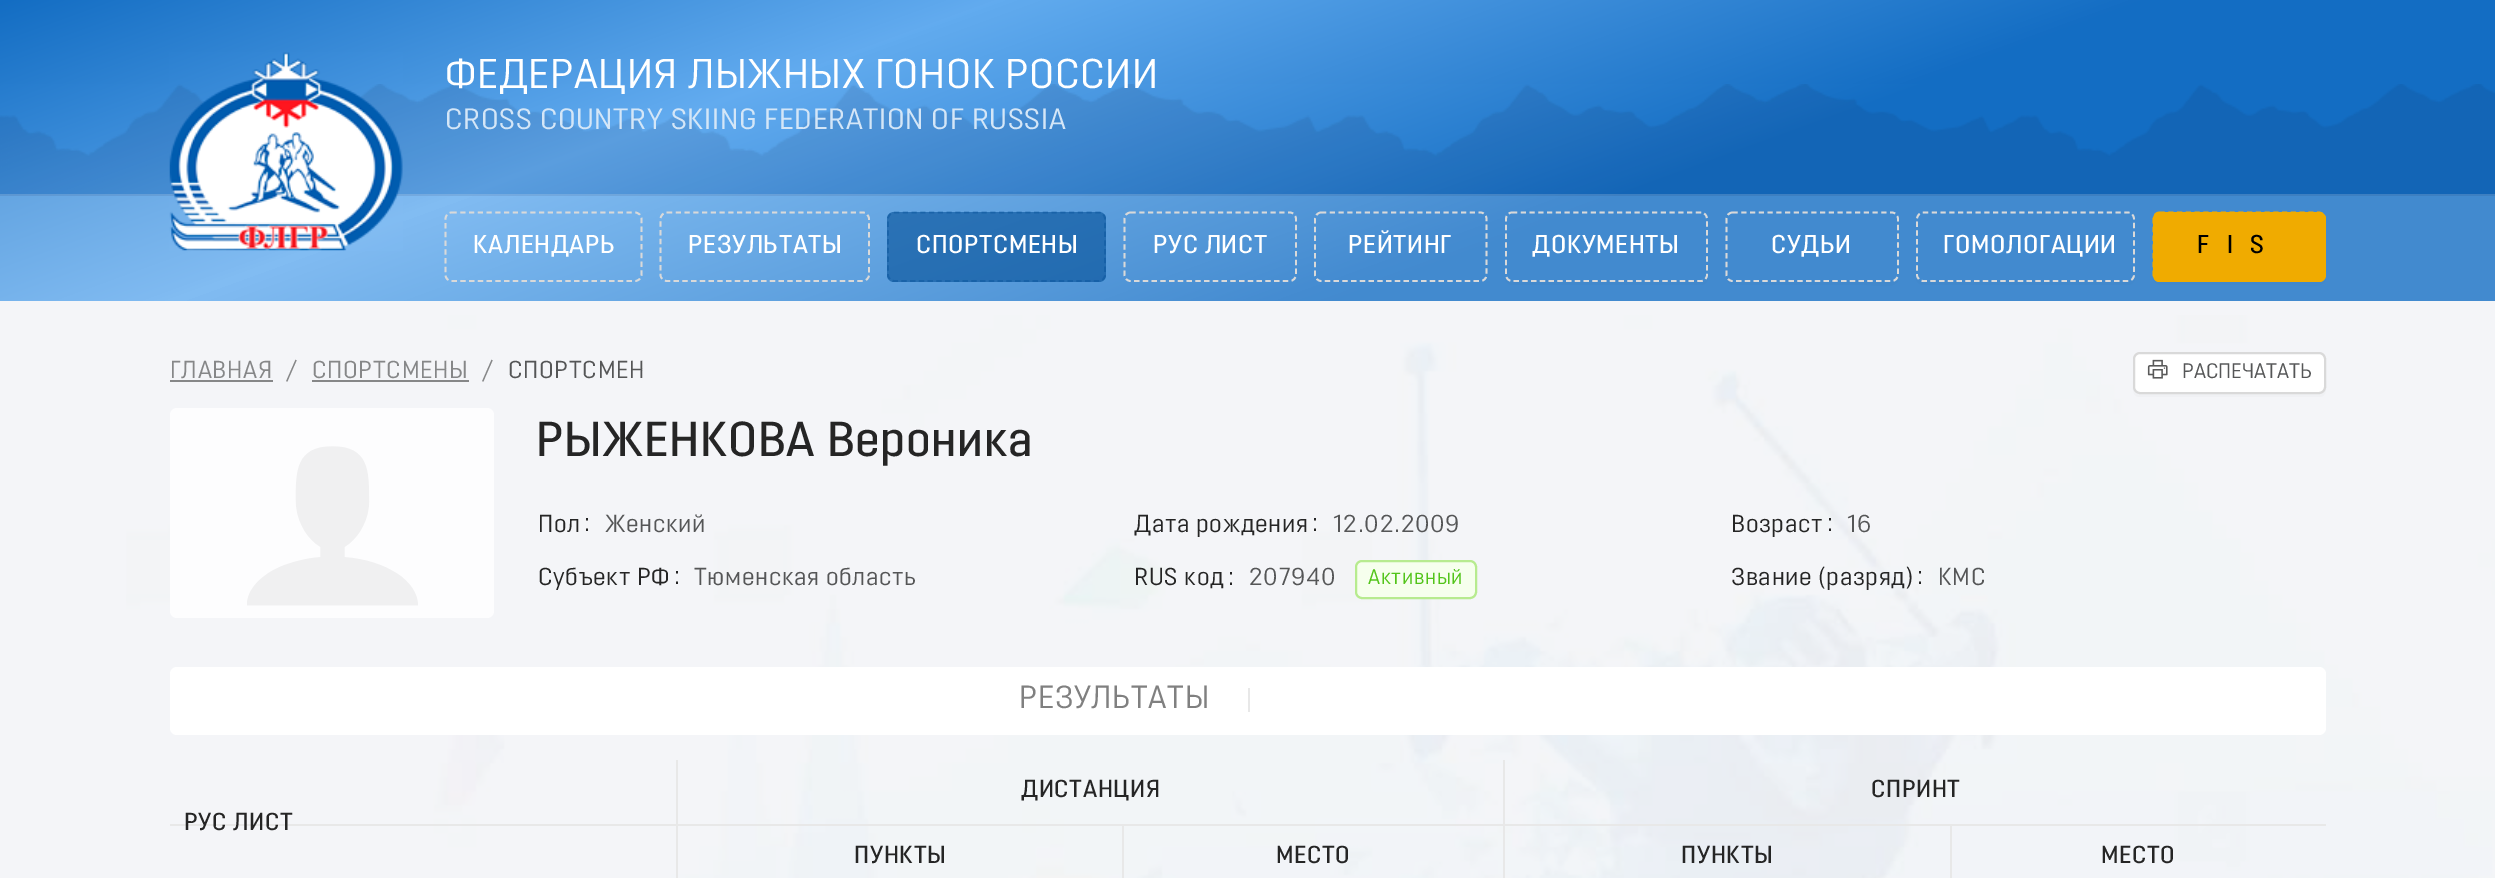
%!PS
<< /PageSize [2495 878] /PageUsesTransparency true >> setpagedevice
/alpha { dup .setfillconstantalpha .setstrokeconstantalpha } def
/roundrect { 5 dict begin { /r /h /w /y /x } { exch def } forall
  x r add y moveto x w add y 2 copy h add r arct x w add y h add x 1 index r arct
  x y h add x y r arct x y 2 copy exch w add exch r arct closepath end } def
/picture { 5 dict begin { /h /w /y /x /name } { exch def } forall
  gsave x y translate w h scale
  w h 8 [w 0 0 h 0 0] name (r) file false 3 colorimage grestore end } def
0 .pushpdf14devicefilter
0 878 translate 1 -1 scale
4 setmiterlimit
0.957 0.961 0.973 setrgbcolor
0 0 2495 878 rectfill
(img1.rgb) 126 315 2369 563 picture
gsave newpath 0 0 moveto 2495 0 lineto 2495 194 lineto 0 194 lineto closepath clip newpath
<< /ShadingType 2 /ColorSpace /DeviceRGB /Coords [1442 684 1053 -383] /Extend [true true] /Function << /FunctionType 3 /Domain [0 1] /Functions [<< /FunctionType 2 /Domain [0 1] /C0 [0.075 0.427 0.765] /C1 [0.075 0.427 0.765] /N 1 >> << /FunctionType 2 /Domain [0 1] /C0 [0.075 0.427 0.765] /C1 [0.384 0.671 0.937] /N 1 >> << /FunctionType 2 /Domain [0 1] /C0 [0.384 0.671 0.937] /C1 [0.075 0.427 0.765] /N 1 >>] /Bounds [0.35 0.7] /Encode [0 1 0 1 0 1] >> >> shfill grestore
gsave newpath 0 194 moveto 2495 194 lineto 2495 301 lineto 0 301 lineto closepath clip newpath
<< /ShadingType 2 /ColorSpace /DeviceRGB /Coords [1442 684 1053 -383] /Extend [true true] /Function << /FunctionType 3 /Domain [0 1] /Functions [<< /FunctionType 2 /Domain [0 1] /C0 [0.259 0.541 0.812] /C1 [0.259 0.541 0.812] /N 1 >> << /FunctionType 2 /Domain [0 1] /C0 [0.259 0.541 0.812] /C1 [0.506 0.737 0.949] /N 1 >> << /FunctionType 2 /Domain [0 1] /C0 [0.506 0.737 0.949] /C1 [0.259 0.541 0.812] /N 1 >>] /Bounds [0.35 0.7] /Encode [0 1 0 1 0 1] >> >> shfill grestore
(img3.rgb) 0 84 2495 112 picture
(img2.rgb) 169 52 234 199 picture
/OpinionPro-Regular [41.6 0 0 -41.6 0 0] selectfont
1 setgray
445 88 moveto 0.7 0 (ФЕДЕРАЦИЯ ЛЫЖНЫХ ГОНОК РОССИИ) ashow
/OpinionPro-Regular [29.4 0 0 -29.4 0 0] selectfont
0.831 0.902 0.969 setrgbcolor
445 129 moveto 0.7 0 (CROSS COUNTRY SKIING FEDERATION OF RUSSIA) ashow
0.851 setgray
1.8 setlinewidth
[5.25 3.5] 0 setdash
newpath 451.5 212.5 moveto 635 212.5 lineto 638.5 212.5 641.5 215.5 641.5 219 curveto 641.5 275 lineto 641.5 278 638.5 281 635 281 curveto 451.5 281 lineto 448 281 445.5 278 445.5 275 curveto 445.5 219 lineto 445.5 215.5 448 212.5 451.5 212.5 curveto closepath stroke
/OpinionPro-Medium [25.75 0 0 -25.75 0 0] selectfont
1 setgray
473 253 moveto 0.7 0 (КАЛЕНДАРЬ) ashow
0.851 setgray
newpath 667 212.5 moveto 863 212.5 lineto 866 212.5 869 215.5 869 219 curveto 869 275 lineto 869 278 866 281 863 281 curveto 667 281 lineto 663.5 281 660.5 278 660.5 275 curveto 660.5 219 lineto 660.5 215.5 663.5 212.5 667 212.5 curveto closepath stroke
1 setgray
688 253 moveto 0.7 0 (РЕЗУЛЬТАТЫ) ashow
0.6 alpha
0.012 0.31 0.592 setrgbcolor
887 212 219 70 7 roundrect fill
0.4 alpha
newpath 894 212.5 moveto 1099 212.5 lineto 1102.5 212.5 1105 215.5 1105 219 curveto 1105 275 lineto 1105 278 1102.5 281 1099 281 curveto 894 281 lineto 891 281 888 278 888 275 curveto 888 219 lineto 888 215.5 891 212.5 894 212.5 curveto closepath stroke
1 alpha
1 setgray
916 253 moveto 0.7 0 (СПОРТСМЕНЫ) ashow
0.851 setgray
newpath 1130.5 212.5 moveto 1290 212.5 lineto 1293 212.5 1296 215.5 1296 219 curveto 1296 275 lineto 1296 278 1293 281 1290 281 curveto 1130.5 281 lineto 1127 281 1124.5 278 1124.5 275 curveto 1124.5 219 lineto 1124.5 215.5 1127 212.5 1130.5 212.5 curveto closepath stroke
1 setgray
1153 253 moveto 0.7 0 (РУС ЛИСТ) ashow
0.851 setgray
newpath 1321 212.5 moveto 1480.5 212.5 lineto 1484 212.5 1486.5 215.5 1486.5 219 curveto 1486.5 275 lineto 1486.5 278 1484 281 1480.5 281 curveto 1321 281 lineto 1318 281 1315 278 1315 275 curveto 1315 219 lineto 1315 215.5 1318 212.5 1321 212.5 curveto closepath stroke
1 setgray
1348 253 moveto 0.7 0 (РЕЙТИНГ) ashow
0.255 0.533 0.8 setrgbcolor
newpath 1505 275 moveto 1505 278 lineto 1505 282 1508 285 1512 285 curveto 1701 285 lineto 1705 285 1708 282 1708 278 curveto 1708 275 lineto 1708 279 1705 282 1701 282 curveto 1512 282 lineto 1508 282 1505 279 1505 275 curveto closepath fill
0.851 setgray
newpath 1512 212.5 moveto 1701 212.5 lineto 1704.5 212.5 1707 215.5 1707 219 curveto 1707 275 lineto 1707 278 1704.5 281 1701 281 curveto 1512 281 lineto 1508.5 281 1506 278 1506 275 curveto 1506 219 lineto 1506 215.5 1508.5 212.5 1512 212.5 curveto closepath stroke
1 setgray
1532 253 moveto 0.7 0 (ДОКУМЕНТЫ) ashow
0.255 0.533 0.8 setrgbcolor
newpath 1726 277 moveto 1726 281 1729 285 1733 285 curveto 1866 285 lineto 1875 285 1897 290 1899 279 curveto 1899 220 lineto 1899 275 lineto 1899 279 1896 282 1892 282 curveto 1732 282 lineto 1730 282 1727 280 1726 277 curveto closepath fill
0.851 setgray
newpath 1732.5 212.5 moveto 1892 212.5 lineto 1895 212.5 1898 215.5 1898 219 curveto 1898 275 lineto 1898 278 1895 281 1892 281 curveto 1732.5 281 lineto 1729 281 1726.5 278 1726.5 275 curveto 1726.5 219 lineto 1726.5 215.5 1729 212.5 1732.5 212.5 curveto closepath stroke
1 setgray
1771 253 moveto 0.7 0 (СУДЬИ) ashow
0.255 0.533 0.8 setrgbcolor
newpath 1916 220 moveto 1916 278 lineto 1916 282 1919 285 1923 285 curveto 2128 285 lineto 2132 285 2135 282 2135 278 curveto 2135 275 lineto 2135 279 2132 282 2128 282 curveto 1923 282 lineto 1919 282 1916 279 1916 275 curveto closepath fill
0.851 setgray
newpath 1923 212.5 moveto 2128 212.5 lineto 2131.5 212.5 2134 215.5 2134 219 curveto 2134 275 lineto 2134 278 2131.5 281 2128 281 curveto 1923 281 lineto 1920 281 1917 278 1917 275 curveto 1917 219 lineto 1917 215.5 1920 212.5 1923 212.5 curveto closepath stroke
1 setgray
1943 253 moveto 0.7 0 (ГОМОЛОГАЦИИ) ashow
0.255 0.533 0.8 setrgbcolor
newpath 2153 277 moveto 2153 281 2156 285 2160 285 curveto 2292 285 lineto 2302 285 2324 290 2326 279 curveto 2326 220 lineto 2326 275 lineto 2326 279 2323 282 2319 282 curveto 2160 282 lineto 2157 282 2154 280 2153 277 curveto closepath fill
0.941 0.671 0 setrgbcolor
2153 212 173 70 7 roundrect fill
newpath 2159.5 212.5 moveto 2319 212.5 lineto 2322 212.5 2325 215.5 2325 219 curveto 2325 275 lineto 2325 278 2322 281 2319 281 curveto 2159.5 281 lineto 2156 281 2153.5 278 2153.5 275 curveto 2153.5 219 lineto 2153.5 215.5 2156 212.5 2159.5 212.5 curveto closepath stroke
0 setgray
2197 253 moveto 17.5 0 (FIS) ashow
/OpinionPro-Regular [24.5 0 0 -24.5 0 0] selectfont
0.525 0.529 0.533 setrgbcolor
170 378 moveto 0.7 0 (ГЛАВНАЯ) ashow
170 380 103 2 rectfill
286 378 moveto 0.7 0 (/) ashow
312 378 moveto 0.7 0 (СПОРТСМЕНЫ) ashow
312 380 157 2 rectfill
482 378 moveto 0.7 0 (/) ashow
0.333 0.337 0.341 setrgbcolor
508 378 moveto 0.7 0 (СПОРТСМЕН) ashow
0.941 0.945 0.957 setrgbcolor
newpath 2133 360 moveto 2133 381 lineto 2133 386 2131 397 2140 397 curveto 2319 397 lineto 2328 397 2326 386 2326 381 curveto 2326 360 lineto 2326 387 lineto 2326 391 2323 394 2319 394 curveto 2140 394 lineto 2136 394 2133 391 2133 387 curveto closepath fill
1 setgray
2134 353 191 40 6 roundrect gsave fill grestore
0.851 setgray
2 setlinewidth
[] 0 setdash
stroke
(img4.rgb) 2147 359 21 20 picture
/OpinionPro-Regular [21 0 0 -21 0 0] selectfont
0.333 0.337 0.341 setrgbcolor
2182 378 moveto (РАСПЕЧАТАТЬ) show
0.992 0.992 0.996 setrgbcolor
170 408 324 210 7 roundrect fill
(img5.rgb) 247 446 171 160 picture
/OpinionPro-Medium [49 0 0 -49 0 0] selectfont
0.145 setgray
536 456 moveto 0.7 0 (РЫЖЕНКОВА Вероника) ashow
/OpinionPro-Regular [24.5 0 0 -24.5 0 0] selectfont
538 532 moveto 0.7 0 (Пол) ashow
584 531 moveto 0.7 0 (:) ashow
0.333 0.337 0.341 setrgbcolor
605 532 moveto 0.7 0 (Женский) ashow
0.145 setgray
1134 532 moveto 0.7 0 (Дата рождения) ashow
1312 531 moveto 0.7 0 (:) ashow
0.333 0.337 0.341 setrgbcolor
1333 532 moveto 0.7 0 (12.02.2009) ashow
0.145 setgray
1731 532 moveto 0.7 0 (Возраст) ashow
1827 531 moveto 0.7 0 (:) ashow
0.333 0.337 0.341 setrgbcolor
1847 532 moveto 0.7 0 (16) ashow
0.145 setgray
538 585 moveto 0.7 0 (Субъект РФ) ashow
674 584 moveto 0.7 0 (:) ashow
0.333 0.337 0.341 setrgbcolor
694 585 moveto 0.7 0 (Тюменская область) ashow
0.145 setgray
1134 585 moveto 0.7 0 (RUS код) ashow
1228 585 moveto 0.7 0 (:) ashow
0.333 0.337 0.341 setrgbcolor
1249 585 moveto 0.7 0 (207940) ashow
0.965 1 0.929 setrgbcolor
1356 561 120 37 6 roundrect gsave fill grestore
0.718 0.922 0.561 setrgbcolor
stroke
/OpinionPro-Regular [21 0 0 -21 0 0] selectfont
0.322 0.769 0.102 setrgbcolor
1368 584 moveto 0.7 0 (Активный) ashow
/OpinionPro-Regular [24.5 0 0 -24.5 0 0] selectfont
0.145 setgray
1731 585 moveto 0.7 0 (Звание \(разряд\)) ashow
1917 584 moveto 0.7 0 (:) ashow
0.333 0.337 0.341 setrgbcolor
1938 585 moveto 0.7 0 (КМС) ashow
1 setgray
170 667 2156 68 7 roundrect fill
/OpinionPro-Regular [32 0 0 -32 0 0] selectfont
0.502 setgray
1019 708 moveto 0.7 0 (РЕЗУЛЬТАТЫ) ashow
0.91 setgray
1248 688 2 24 rectfill
170 824 2156 2 rectfill
1503 760 2 118 rectfill
/OpinionPro-Medium [24.5 0 0 -24.5 0 0] selectfont
0.145 setgray
1021 797 moveto 0.7 0 (ДИСТАНЦИЯ) ashow
1871 797 moveto 0.7 0 (СПРИНТ) ashow
0.91 setgray
676 760 2 118 rectfill
0.145 setgray
184 830 moveto 0.7 0 (РУС ЛИСТ) ashow
0.91 setgray
1122 826 2 52 rectfill
0.145 setgray
854 863 moveto 0.7 0 (ПУНКТЫ) ashow
1276 863 moveto 0.7 0 (МЕСТО) ashow
0.91 setgray
1950 826 2 52 rectfill
0.145 setgray
1681 863 moveto 0.7 0 (ПУНКТЫ) ashow
2101 863 moveto 0.7 0 (МЕСТО) ashow
.poppdf14devicefilter showpage
